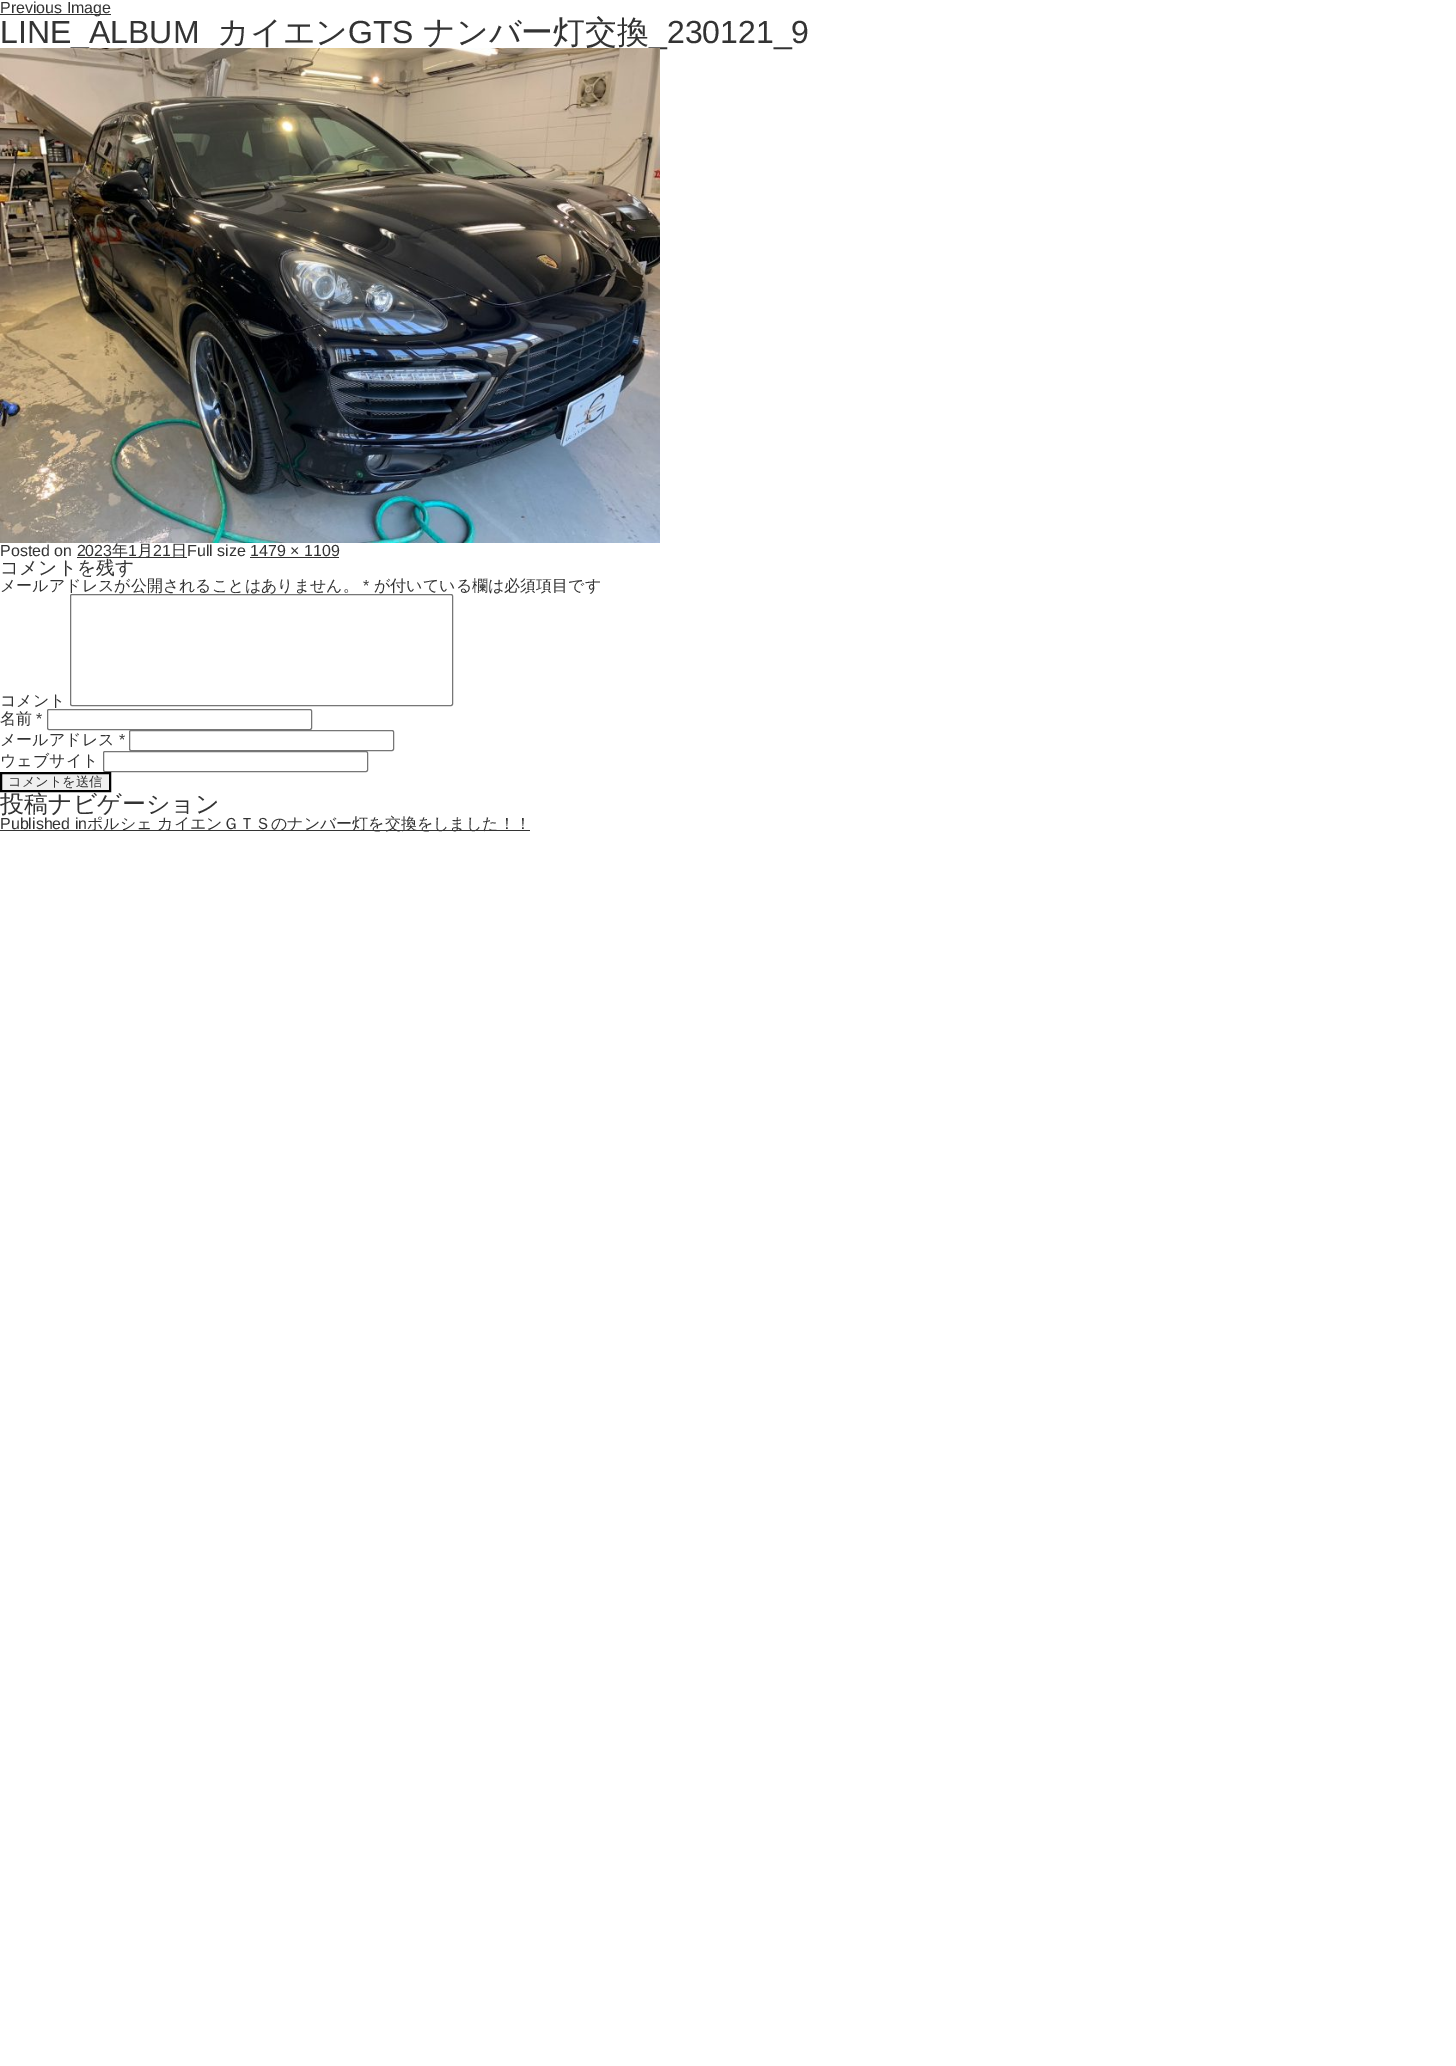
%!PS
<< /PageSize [1456 2066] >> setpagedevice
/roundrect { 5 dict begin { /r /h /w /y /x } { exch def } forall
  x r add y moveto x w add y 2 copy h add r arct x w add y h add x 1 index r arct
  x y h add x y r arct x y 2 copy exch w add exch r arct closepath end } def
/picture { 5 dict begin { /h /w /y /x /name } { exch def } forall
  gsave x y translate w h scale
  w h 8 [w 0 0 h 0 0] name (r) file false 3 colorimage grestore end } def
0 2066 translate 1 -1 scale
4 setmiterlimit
1 setgray
0 0 1456 2066 rectfill
0.2 setgray
0 14 111 1 rectfill
/LiberationSans-Regular [16 0 0 -16 0 0] selectfont
0 13 moveto (Previous Image) show
/LiberationSans-Regular [32 0 0 -32 0 0] selectfont
0 43 moveto (LINE_ALBUM) show
/WenQuanYiZenHei-Medium [32 0 0 -32 0 0] selectfont
217 43 moveto (カイエン) show
/LiberationSans-Regular [32 0 0 -32 0 0] selectfont
348 43 moveto (GTS) show
/WenQuanYiZenHei-Medium [32 0 0 -32 0 0] selectfont
423 43 moveto (ナンバー灯交換) show
/LiberationSans-Regular [32 0 0 -32 0 0] selectfont
649 43 moveto (_230121_9) show
(img1.rgb) 0 48 660 495 picture
/LiberationSans-Regular [16 0 0 -16 0 0] selectfont
0 556 moveto (Posted on 2023) show
77 557 110 1 rectfill
/WenQuanYiZenHei-Medium [16 0 0 -16 0 0] selectfont
112 556 moveto (年) show
/LiberationSans-Regular [16 0 0 -16 0 0] selectfont
128 556 moveto (1) show
/WenQuanYiZenHei-Medium [16 0 0 -16 0 0] selectfont
137 556 moveto (月) show
/LiberationSans-Regular [16 0 0 -16 0 0] selectfont
153 556 moveto (21) show
/WenQuanYiZenHei-Medium [16 0 0 -16 0 0] selectfont
171 556 moveto (日) show
/LiberationSans-Regular [16 0 0 -16 0 0] selectfont
187 556 moveto (Full size 1479 × 1109) show
250 557 89 1 rectfill
/WenQuanYiZenHei-Medium [18.75 0 0 -18.75 0 0] selectfont
0 574 moveto (コメントを残す) show
/WenQuanYiZenHei-Medium [16 0 0 -16 0 0] selectfont
0 591 moveto (メールアドレスが公開されることはありません。) show
/LiberationSans-Regular [16 0 0 -16 0 0] selectfont
363 591 moveto (*) show
/WenQuanYiZenHei-Medium [16 0 0 -16 0 0] selectfont
374 591 moveto (が付いている欄は必須項目です) show
0 706 moveto (コメント) show
0.463 setgray
70.5 594.5 382 111 1.5 roundrect stroke
0.2 setgray
0 724 moveto (名前) show
/LiberationSans-Regular [16 0 0 -16 0 0] selectfont
36 724 moveto (*) show
0.463 setgray
47.5 709.5 264 20 1.5 roundrect stroke
/WenQuanYiZenHei-Medium [16 0 0 -16 0 0] selectfont
0.2 setgray
0 745 moveto (メールアドレス) show
/LiberationSans-Regular [16 0 0 -16 0 0] selectfont
119 745 moveto (*) show
0.463 setgray
129.5 730.5 264 20 1.5 roundrect stroke
/WenQuanYiZenHei-Medium [16 0 0 -16 0 0] selectfont
0.2 setgray
0 766 moveto (ウェブサイト) show
0.463 setgray
103.5 751.5 264 20 1.5 roundrect stroke
0.937 setgray
newpath 1 773 moveto 110 773 lineto 110 791 lineto 1 791 lineto closepath gsave fill grestore
0 setgray
2 setlinewidth
stroke
/WenQuanYiZenHei-Medium [13.25 0 0 -13.25 0 0] selectfont
0.2 setgray
8 786 moveto (コメントを送信) show
/WenQuanYiZenHei-Medium [24 0 0 -24 0 0] selectfont
0 812 moveto (投稿ナビゲーション) show
/LiberationSans-Regular [16 0 0 -16 0 0] selectfont
0 829 moveto (Published in) show
0 830 530 1 rectfill
/WenQuanYiZenHei-Medium [16 0 0 -16 0 0] selectfont
87 829 moveto (ポルシェ カイエンＧＴＳのナンバー灯を交換をしました！！) show
showpage
